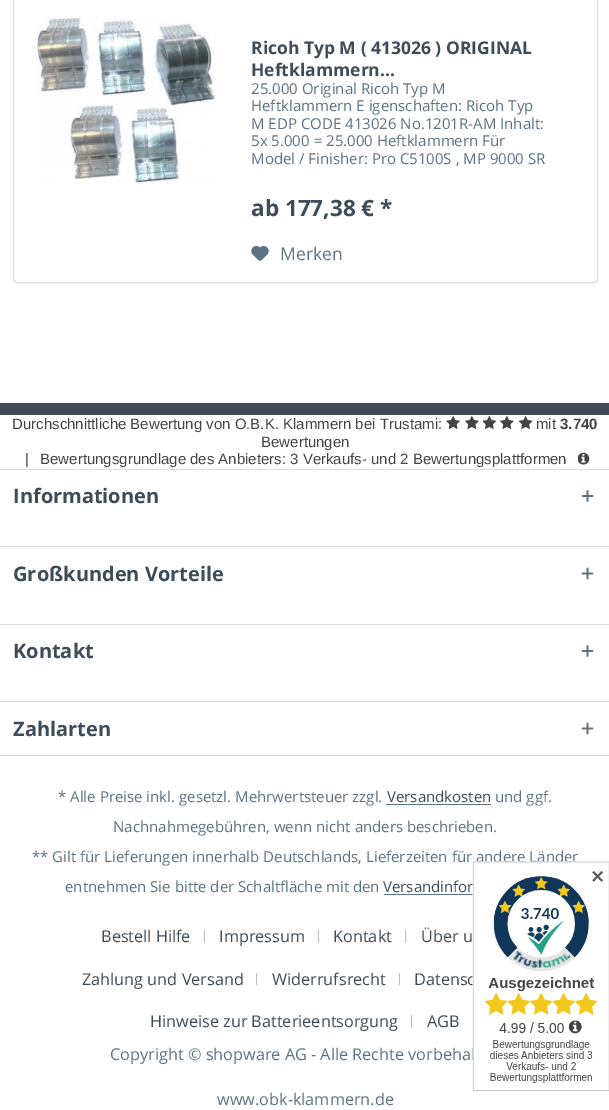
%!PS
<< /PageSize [609 1110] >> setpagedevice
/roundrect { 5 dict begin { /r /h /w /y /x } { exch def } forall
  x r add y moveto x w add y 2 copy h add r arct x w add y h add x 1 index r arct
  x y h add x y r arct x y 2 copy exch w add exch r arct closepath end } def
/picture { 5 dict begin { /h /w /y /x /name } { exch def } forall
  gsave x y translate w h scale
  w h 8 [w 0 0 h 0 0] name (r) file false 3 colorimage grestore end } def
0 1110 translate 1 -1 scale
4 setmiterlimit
0.247 0.298 0.345 setrgbcolor
0 0 609 1110 rectfill
1 setgray
0 0 609 403 rectfill
0.855 0.855 0.898 setrgbcolor
13.5 -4.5 584 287 3.5 roundrect stroke
(img1.rgb) 36 16 180 167 picture
/OpenSans-Bold [17.5 0 0 -17.5 0 0] selectfont
0.247 0.298 0.345 setrgbcolor
251 54 moveto (Ricoh Typ M \( 413026 \) ORIGINAL) show
251 76 moveto (Heftklammern...) show
/OpenSans-Regular [15 0 0 -15 0 0] selectfont
0.373 0.447 0.522 setrgbcolor
251 94 moveto (25.000 Original Ricoh Typ M) show
251 111 moveto (Heftklammern E igenschaften: Ricoh Typ) show
251 129 moveto (M EDP CODE 413026 No.1201R-AM Inhalt:) show
251 146 moveto (5x 5.000 = 25.000 Heftklammern Für) show
251 164 moveto (Model / Finisher: Pro C5100S , MP 9000 SR) show
/OpenSans-Bold [22.5 0 0 -22.5 0 0] selectfont
0.247 0.298 0.345 setrgbcolor
251 216 moveto (ab 177,38 € *) show
(img2.rgb) 251 245 18 16 picture
/OpenSans-Regular [17.5 0 0 -17.5 0 0] selectfont
0.373 0.447 0.522 setrgbcolor
280 260 moveto (Merken) show
1 setgray
0 415 609 695 rectfill
/LiberationSans-Regular [15 0 0 -15 0 0] selectfont
0.267 setgray
12 429 moveto (Durchschnittliche Bewertung von O.B.K. Klammern bei Trustami:) show
(img3.rgb) 446 416 14 13 picture
(img4.rgb) 465 416 14 13 picture
(img5.rgb) 483 416 13 13 picture
(img4.rgb) 500 416 14 13 picture
(img6.rgb) 519 416 14 13 picture
536 429 moveto (mit) show
/LiberationSans-Bold [15 0 0 -15 0 0] selectfont
560 429 moveto (3.740) show
/LiberationSans-Regular [15 0 0 -15 0 0] selectfont
261 447 moveto (Bewertungen) show
25 464 moveto (|) show
40 464 moveto (Bewertungsgrundlage des Anbieters: 3 Verkaufs- und 2 Bewertungsplattformen) show
(img7.rgb) 578 452 12 13 picture
0.855 0.855 0.898 setrgbcolor
0 469 609 1 rectfill
/OpenSans-Bold [20 0 0 -20 0 0] selectfont
0.247 0.298 0.345 setrgbcolor
13 503 moveto (Informationen) show
(img8.rgb) 581 490 13 12 picture
0.855 0.855 0.898 setrgbcolor
0 546 609 1 rectfill
0.247 0.298 0.345 setrgbcolor
13 581 moveto (Großkunden Vorteile) show
(img9.rgb) 581 567 13 13 picture
0.855 0.855 0.898 setrgbcolor
0 624 609 1 rectfill
0.247 0.298 0.345 setrgbcolor
13 658 moveto (Kontakt) show
(img8.rgb) 581 645 13 12 picture
0.855 0.855 0.898 setrgbcolor
0 701 609 1 rectfill
0 755 609 1 rectfill
0.247 0.298 0.345 setrgbcolor
13 736 moveto (Zahlarten) show
(img9.rgb) 581 722 13 13 picture
/OpenSans-Regular [15 0 0 -15 0 0] selectfont
0.373 0.447 0.522 setrgbcolor
58 802 moveto (* Alle Preise inkl. gesetzl. Mehrwertsteuer zzgl.) show
0.247 0.298 0.345 setrgbcolor
387 802 moveto (Versandkosten) show
0.373 0.447 0.522 setrgbcolor
386 804 105 1 rectfill
495 802 moveto (und ggf.) show
113 832 moveto (Nachnahmegebühren, wenn nicht anders beschrieben.) show
32 862 moveto (** Gilt für Lieferungen innerhalb Deutschlands, Lieferzeiten für andere Länder) show
65 892 moveto (entnehmen Sie bitte der Schaltfläche mit den) show
0.247 0.298 0.345 setrgbcolor
383 892 moveto (Versandinfor) show
0.373 0.447 0.522 setrgbcolor
384 894 89 1 rectfill
/OpenSans-Regular [16.25 0 0 -16.25 0 0] selectfont
0.247 0.298 0.345 setrgbcolor
101 942 moveto (Bestell Hilfe) show
0.737 0.737 0.816 setrgbcolor
204 930 1 13 rectfill
0.247 0.298 0.345 setrgbcolor
219 942 moveto (Impressum) show
0.737 0.737 0.816 setrgbcolor
318 930 1 13 rectfill
0.247 0.298 0.345 setrgbcolor
333 942 moveto (Kontakt) show
0.737 0.737 0.816 setrgbcolor
405 930 1 13 rectfill
0.247 0.298 0.345 setrgbcolor
421 942 moveto (Über u) show
82 985 moveto (Zahlung und Versand) show
0.737 0.737 0.816 setrgbcolor
256 973 1 12 rectfill
0.247 0.298 0.345 setrgbcolor
272 985 moveto (Widerrufsrecht) show
0.737 0.737 0.816 setrgbcolor
399 973 1 12 rectfill
0.247 0.298 0.345 setrgbcolor
414 985 moveto (Datensc) show
150 1027 moveto (Hinweise zur Batterieentsorgung) show
0.737 0.737 0.816 setrgbcolor
411 1015 1 13 rectfill
0.247 0.298 0.345 setrgbcolor
427 1027 moveto (AGB) show
0.373 0.447 0.522 setrgbcolor
110 1060 moveto (Copyright © shopware AG - Alle Rechte vorbeha) show
217 1105 moveto (www.obk-klammern.de) show
(img10.rgb) 472 861 137 230 picture
/DejaVuSans-Bold [17.5 0 0 -17.5 0 0] selectfont
0.349 setgray
590 883 moveto (✕) show
showpage
